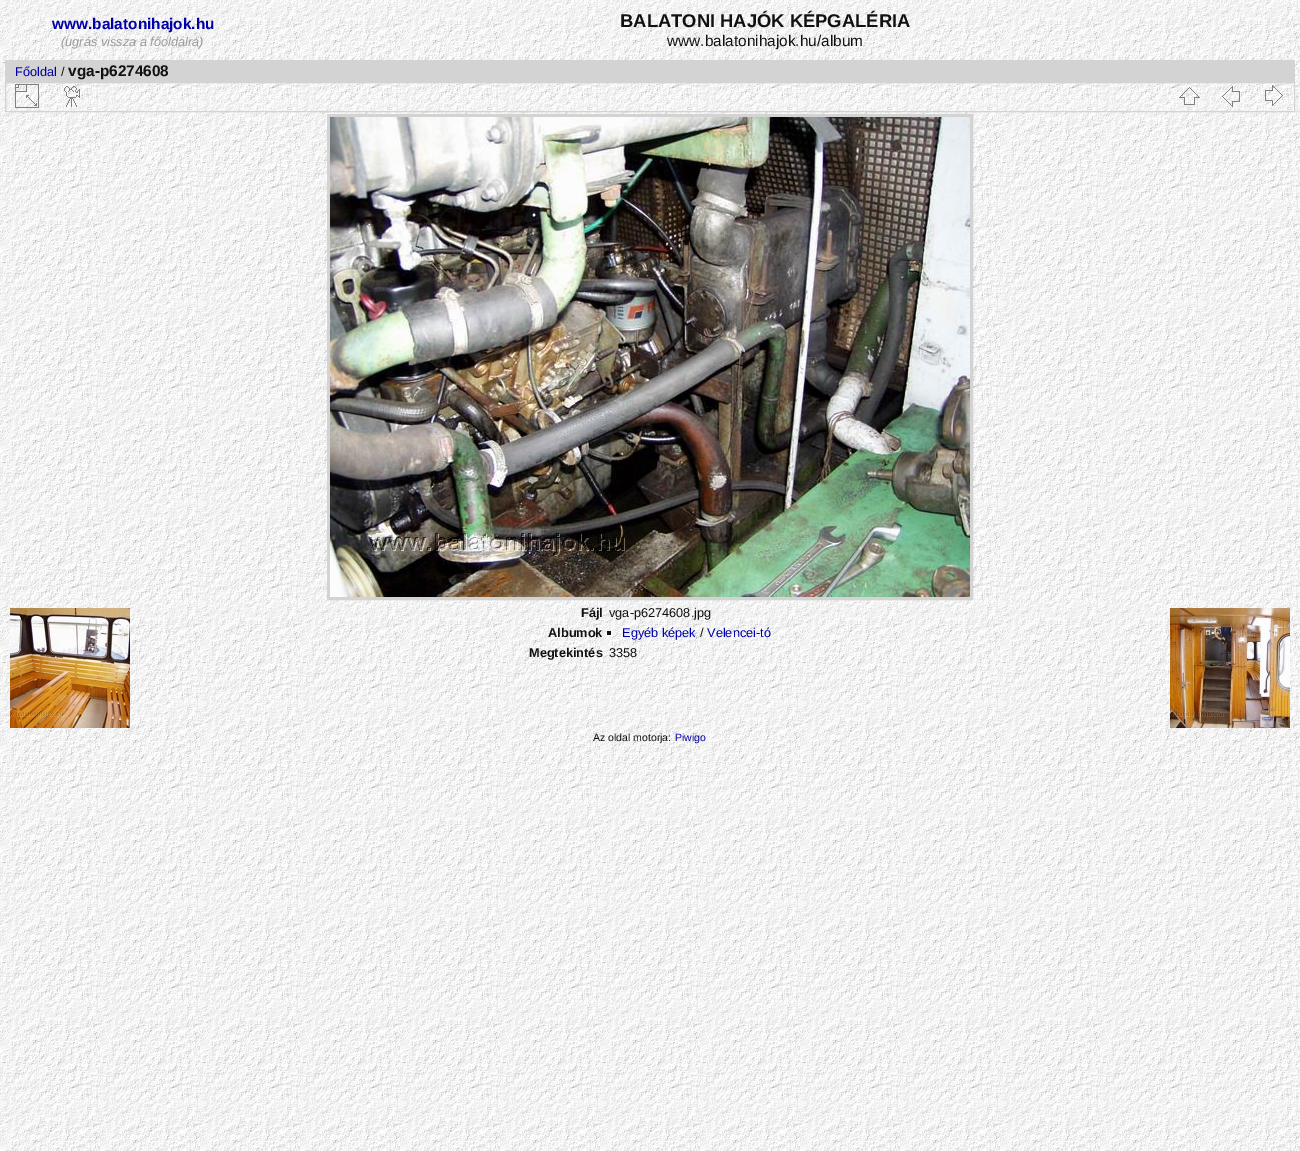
%!PS
<< /PageSize [1300 1151] >> setpagedevice
/picture { 5 dict begin { /h /w /y /x /name } { exch def } forall
  gsave x y translate w h scale
  w h 8 [w 0 0 h 0 0] name (r) file false 3 colorimage grestore end } def
0 1151 translate 1 -1 scale
4 setmiterlimit
1 setgray
0 0 1300 1151 rectfill
(img1.rgb) 0 0 1300 1151 picture
/LiberationSans-Bold [15.4 0 0 -15.4 0 0] selectfont
0 0 0.667 setrgbcolor
52 29 moveto (www.balatonihajok.hu) show
/LiberationSans-Italic [12.75 0 0 -12.75 0 0] selectfont
0.6 setgray
61 46 moveto (\(ugrás vissza a főoldalra\)) show
/LiberationSans-Bold [18.4 0 0 -18.4 0 0] selectfont
0.067 setgray
620 27 moveto (BALATONI HAJÓK KÉPGALÉRIA) show
/LiberationSans-Regular [15.4 0 0 -15.4 0 0] selectfont
667 46 moveto (www.balatonihajok.hu/album) show
0.827 setgray
5 60 1290 22 rectfill
/LiberationSans-Regular [12.75 0 0 -12.75 0 0] selectfont
0 0 0.667 setrgbcolor
15 76 moveto (Főoldal) show
0.067 setgray
61 76 moveto (/) show
/LiberationSans-Bold [15.4 0 0 -15.4 0 0] selectfont
68 76 moveto (vga-p6274608) show
0.827 setgray
5.5 82.5 1289 29 rectstroke
(img2.rgb) 15 84 24 24 picture
(img3.rgb) 64 86 16 21 picture
(img4.rgb) 1179 87 21 18 picture
(img5.rgb) 1222 86 18 21 picture
(img6.rgb) 1265 85 18 21 picture
3 setlinewidth
328.5 115.5 643 483 rectstroke
(img7.rgb) 330 117 640 480 picture
/LiberationSans-Bold [12.75 0 0 -12.75 0 0] selectfont
0.067 setgray
581 617 moveto (Fájl) show
/LiberationSans-Regular [12.75 0 0 -12.75 0 0] selectfont
609 617 moveto (vga-p6274608.jpg) show
/LiberationSans-Bold [12.75 0 0 -12.75 0 0] selectfont
548 637 moveto (Albumok) show
607 631 4 4 rectfill
/LiberationSans-Regular [12.75 0 0 -12.75 0 0] selectfont
0 0 0.667 setrgbcolor
622 637 moveto (Egyéb képek) show
0.067 setgray
700 637 moveto (/) show
0 0 0.667 setrgbcolor
707 637 moveto (Velencei-tó) show
/LiberationSans-Bold [12.75 0 0 -12.75 0 0] selectfont
0.067 setgray
529 657 moveto (Megtekintés) show
/LiberationSans-Regular [12.75 0 0 -12.75 0 0] selectfont
609 657 moveto (3358) show
(img8.rgb) 10 608 120 120 picture
(img9.rgb) 1170 608 120 120 picture
/LiberationSans-Regular [10.5 0 0 -10.5 0 0] selectfont
593 741 moveto (Az oldal motorja:) show
0 0 0.667 setrgbcolor
675 741 moveto (Piwigo) show
showpage
